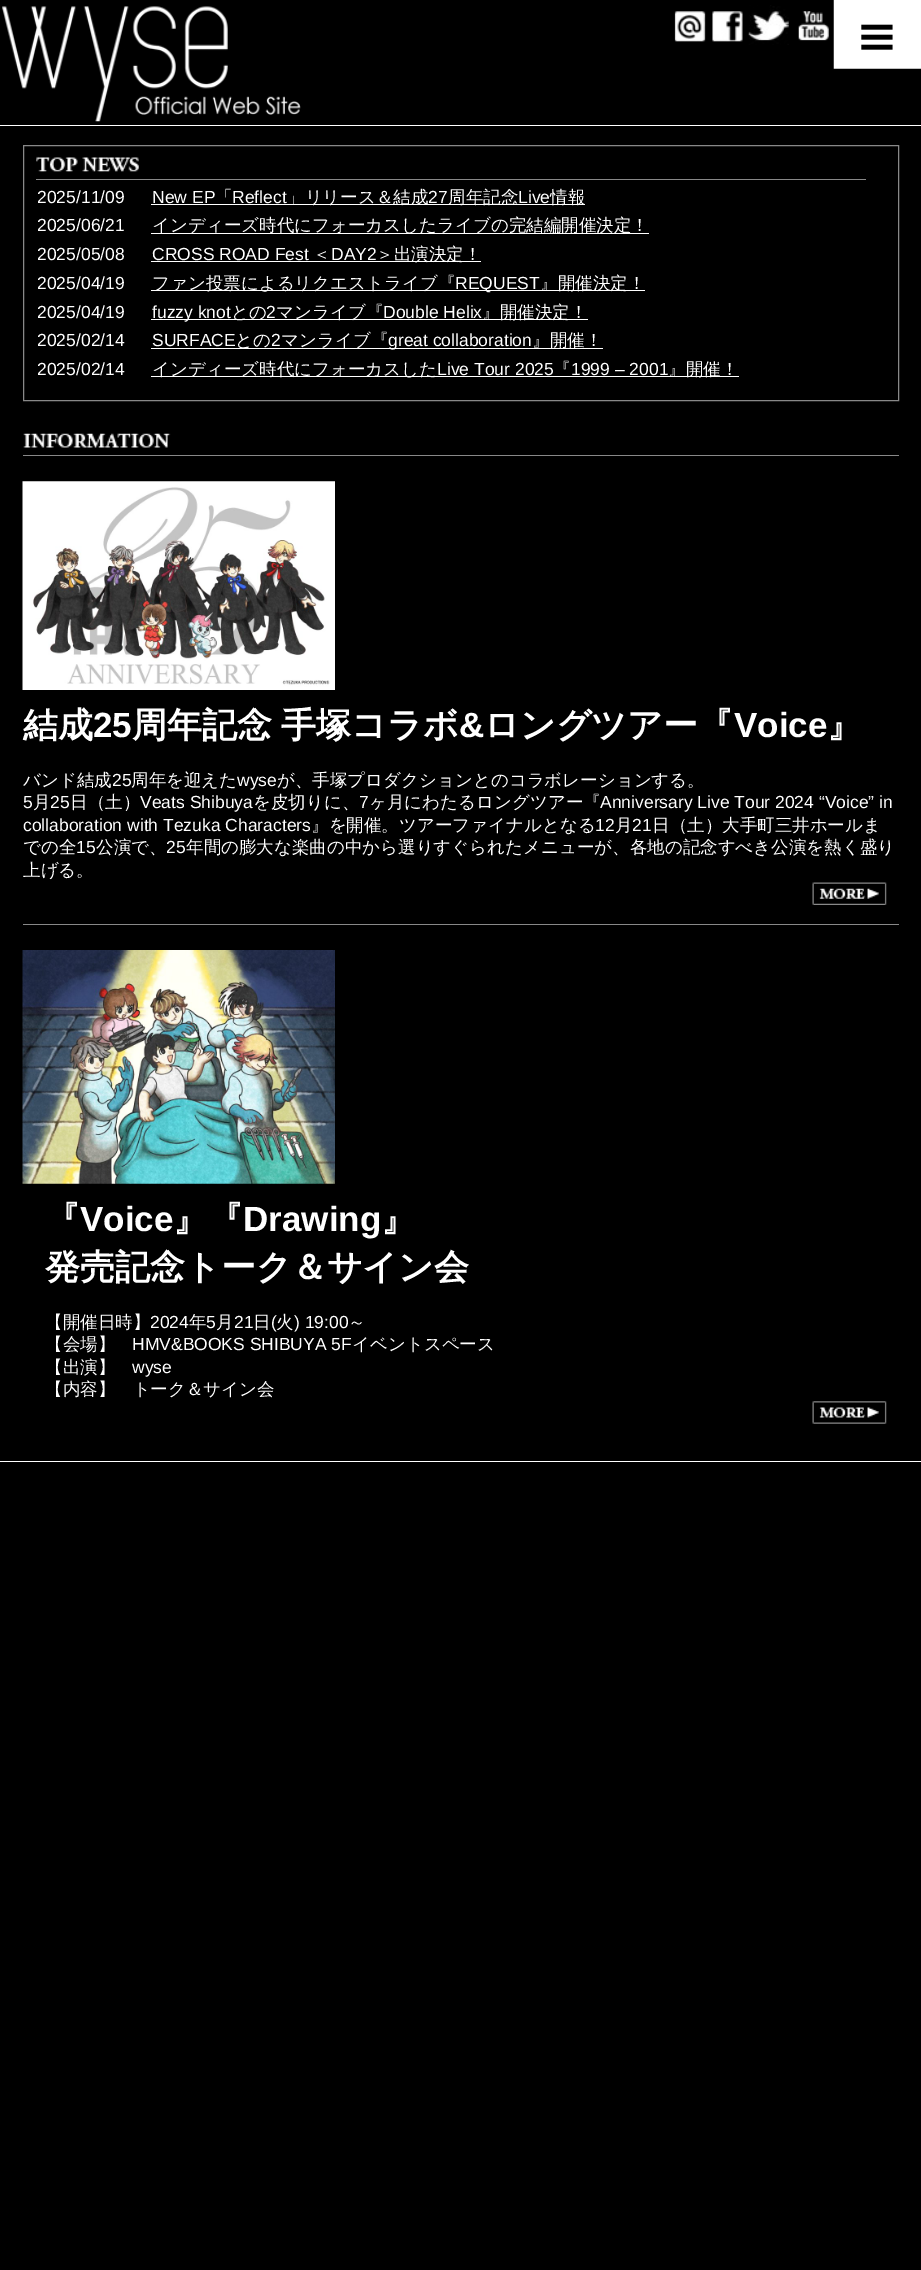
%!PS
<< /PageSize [921 2270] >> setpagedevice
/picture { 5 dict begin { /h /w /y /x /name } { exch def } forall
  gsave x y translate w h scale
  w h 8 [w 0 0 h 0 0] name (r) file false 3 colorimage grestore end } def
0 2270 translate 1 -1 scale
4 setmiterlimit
0 setgray
0 0 921 2270 rectfill
(img1.rgb) 833 0 88 69 picture
1 setgray
0 125 921 1 rectfill
(img2.rgb) 2 6 299 116 picture
(img3.rgb) 674 11 32 31 picture
(img4.rgb) 712 11 31 31 picture
(img5.rgb) 748 5 41 40 picture
(img6.rgb) 798 11 31 30 picture
0.533 setgray
23.5 145.5 875 255 rectstroke
36 179 830 1 rectfill
(img7.rgb) 36 156 103 16 picture
/LiberationSans-Regular [17.5 0 0 -17.5 0 0] selectfont
1 setgray
37 203 moveto (2025/11/09) show
152 203 moveto (New EP) show
151 204 434 1 rectfill
/WenQuanYiZenHei-Medium [17.5 0 0 -17.5 0 0] selectfont
215 203 moveto (「) show
/LiberationSans-Regular [17.5 0 0 -17.5 0 0] selectfont
232 203 moveto (Reflect) show
/WenQuanYiZenHei-Medium [17.5 0 0 -17.5 0 0] selectfont
287 203 moveto (」リリース＆結成) show
/LiberationSans-Regular [17.5 0 0 -17.5 0 0] selectfont
428 203 moveto (27) show
/WenQuanYiZenHei-Medium [17.5 0 0 -17.5 0 0] selectfont
448 203 moveto (周年記念) show
/LiberationSans-Regular [17.5 0 0 -17.5 0 0] selectfont
518 203 moveto (Live) show
/WenQuanYiZenHei-Medium [17.5 0 0 -17.5 0 0] selectfont
550 203 moveto (情報) show
/LiberationSans-Regular [17.5 0 0 -17.5 0 0] selectfont
37 231 moveto (2025/06/21) show
151 233 498 1 rectfill
/WenQuanYiZenHei-Medium [17.5 0 0 -17.5 0 0] selectfont
152 231 moveto (インディーズ時代にフォーカスしたライブの完結編開催決定！) show
/LiberationSans-Regular [17.5 0 0 -17.5 0 0] selectfont
37 260 moveto (2025/05/08) show
152 260 moveto (CROSS ROAD Fest) show
/WenQuanYiZenHei-Medium [17.5 0 0 -17.5 0 0] selectfont
313 260 moveto (＜) show
151 261 330 1 rectfill
/LiberationSans-Regular [17.5 0 0 -17.5 0 0] selectfont
331 260 moveto (DAY2) show
/WenQuanYiZenHei-Medium [17.5 0 0 -17.5 0 0] selectfont
376 260 moveto (＞出演決定！) show
/LiberationSans-Regular [17.5 0 0 -17.5 0 0] selectfont
37 289 moveto (2025/04/19) show
151 290 494 1 rectfill
/WenQuanYiZenHei-Medium [17.5 0 0 -17.5 0 0] selectfont
152 289 moveto (ファン投票によるリクエストライブ『) show
/LiberationSans-Regular [17.5 0 0 -17.5 0 0] selectfont
455 289 moveto (REQUEST) show
/WenQuanYiZenHei-Medium [17.5 0 0 -17.5 0 0] selectfont
540 289 moveto (』開催決定！) show
/LiberationSans-Regular [17.5 0 0 -17.5 0 0] selectfont
37 318 moveto (2025/04/19) show
151 319 437 1 rectfill
152 318 moveto (fuzzy knot) show
/WenQuanYiZenHei-Medium [17.5 0 0 -17.5 0 0] selectfont
231 318 moveto (との) show
/LiberationSans-Regular [17.5 0 0 -17.5 0 0] selectfont
266 318 moveto (2) show
/WenQuanYiZenHei-Medium [17.5 0 0 -17.5 0 0] selectfont
276 318 moveto (マンライブ『) show
/LiberationSans-Regular [17.5 0 0 -17.5 0 0] selectfont
383 318 moveto (Double Helix) show
/WenQuanYiZenHei-Medium [17.5 0 0 -17.5 0 0] selectfont
482 318 moveto (』開催決定！) show
/LiberationSans-Regular [17.5 0 0 -17.5 0 0] selectfont
37 346 moveto (2025/02/14) show
152 346 moveto (SURFACE) show
151 348 452 1 rectfill
/WenQuanYiZenHei-Medium [17.5 0 0 -17.5 0 0] selectfont
235 346 moveto (との) show
/LiberationSans-Regular [17.5 0 0 -17.5 0 0] selectfont
271 346 moveto (2) show
/WenQuanYiZenHei-Medium [17.5 0 0 -17.5 0 0] selectfont
281 346 moveto (マンライブ『) show
/LiberationSans-Regular [17.5 0 0 -17.5 0 0] selectfont
388 346 moveto (great collaboration) show
/WenQuanYiZenHei-Medium [17.5 0 0 -17.5 0 0] selectfont
532 346 moveto (』開催！) show
/LiberationSans-Regular [17.5 0 0 -17.5 0 0] selectfont
37 375 moveto (2025/02/14) show
151 376 588 1 rectfill
/WenQuanYiZenHei-Medium [17.5 0 0 -17.5 0 0] selectfont
152 375 moveto (インディーズ時代にフォーカスした) show
/LiberationSans-Regular [17.5 0 0 -17.5 0 0] selectfont
437 375 moveto (Live Tour 2025) show
/WenQuanYiZenHei-Medium [17.5 0 0 -17.5 0 0] selectfont
553 375 moveto (『) show
/LiberationSans-Regular [17.5 0 0 -17.5 0 0] selectfont
571 375 moveto (1999 – 2001) show
/WenQuanYiZenHei-Medium [17.5 0 0 -17.5 0 0] selectfont
668 375 moveto (』開催！) show
(img8.rgb) 23 433 148 15 picture
0.533 setgray
23 455 876 1 rectfill
(img9.rgb) 22 481 313 209 picture
/WenQuanYiZenHei-Bold [35 0 0 -35 0 0] selectfont
1 setgray
23 737 moveto (結成) show
/LiberationSans-Bold [35 0 0 -35 0 0] selectfont
93 737 moveto (25) show
/WenQuanYiZenHei-Bold [35 0 0 -35 0 0] selectfont
132 737 moveto -1 0 32 (周年記念 手塚コラボ) widthshow
/LiberationSans-Bold [35 0 0 -35 0 0] selectfont
459 737 moveto (&) show
/WenQuanYiZenHei-Bold [35 0 0 -35 0 0] selectfont
484 737 moveto (ロングツアー『) show
/LiberationSans-Bold [35 0 0 -35 0 0] selectfont
734 737 moveto (Voice) show
/WenQuanYiZenHei-Bold [35 0 0 -35 0 0] selectfont
827 737 moveto (』) show
/WenQuanYiZenHei-Medium [17.5 0 0 -17.5 0 0] selectfont
23 786 moveto (バンド結成) show
/LiberationSans-Regular [17.5 0 0 -17.5 0 0] selectfont
112 786 moveto (25) show
/WenQuanYiZenHei-Medium [17.5 0 0 -17.5 0 0] selectfont
131 786 moveto (周年を迎えた) show
/LiberationSans-Regular [17.5 0 0 -17.5 0 0] selectfont
237 786 moveto (wyse) show
/WenQuanYiZenHei-Medium [17.5 0 0 -17.5 0 0] selectfont
277 786 moveto (が、手塚プロダクションとのコラボレーションする。) show
/LiberationSans-Regular [17.5 0 0 -17.5 0 0] selectfont
23 808 moveto (5) show
/WenQuanYiZenHei-Medium [17.5 0 0 -17.5 0 0] selectfont
33 808 moveto (月) show
/LiberationSans-Regular [17.5 0 0 -17.5 0 0] selectfont
50 808 moveto (25) show
/WenQuanYiZenHei-Medium [17.5 0 0 -17.5 0 0] selectfont
70 808 moveto (日（土）) show
/LiberationSans-Regular [17.5 0 0 -17.5 0 0] selectfont
140 808 moveto (Veats Shibuya) show
/WenQuanYiZenHei-Medium [17.5 0 0 -17.5 0 0] selectfont
253 808 moveto (を皮切りに、) show
/LiberationSans-Regular [17.5 0 0 -17.5 0 0] selectfont
359 808 moveto (7) show
/WenQuanYiZenHei-Medium [17.5 0 0 -17.5 0 0] selectfont
369 808 moveto (ヶ月にわたるロングツアー『) show
/LiberationSans-Regular [17.5 0 0 -17.5 0 0] selectfont
600 808 moveto (Anniversary Live Tour 2024 “Voice” in) show
23 831 moveto (collaboration with Tezuka Characters) show
/WenQuanYiZenHei-Medium [17.5 0 0 -17.5 0 0] selectfont
311 831 moveto (』を開催。ツアーファイナルとなる) show
/LiberationSans-Regular [17.5 0 0 -17.5 0 0] selectfont
595 831 moveto (12) show
/WenQuanYiZenHei-Medium [17.5 0 0 -17.5 0 0] selectfont
615 831 moveto (月) show
/LiberationSans-Regular [17.5 0 0 -17.5 0 0] selectfont
632 831 moveto (21) show
/WenQuanYiZenHei-Medium [17.5 0 0 -17.5 0 0] selectfont
652 831 moveto (日（土）大手町三井ホールま) show
23 853 moveto (での全) show
/LiberationSans-Regular [17.5 0 0 -17.5 0 0] selectfont
76 853 moveto (15) show
/WenQuanYiZenHei-Medium [17.5 0 0 -17.5 0 0] selectfont
96 853 moveto (公演で、) show
/LiberationSans-Regular [17.5 0 0 -17.5 0 0] selectfont
166 853 moveto (25) show
/WenQuanYiZenHei-Medium [17.5 0 0 -17.5 0 0] selectfont
186 853 moveto (年間の膨大な楽曲の中から選りすぐられたメニューが、各地の記念すべき公演を熱く盛り) show
23 876 moveto (上げる。) show
(img10.rgb) 812 882 75 23 picture
0.533 setgray
23 924 876 1 rectfill
(img11.rgb) 22 950 313 234 picture
/WenQuanYiZenHei-Bold [35 0 0 -35 0 0] selectfont
1 setgray
45 1231 moveto (『) show
/LiberationSans-Bold [35 0 0 -35 0 0] selectfont
80 1231 moveto (Voice) show
/WenQuanYiZenHei-Bold [35 0 0 -35 0 0] selectfont
173 1231 moveto (』『) show
/LiberationSans-Bold [35 0 0 -35 0 0] selectfont
243 1231 moveto (Drawing) show
/WenQuanYiZenHei-Bold [35 0 0 -35 0 0] selectfont
381 1231 moveto (』) show
45 1279 moveto (発売記念トーク＆サイン会) show
/WenQuanYiZenHei-Medium [17.5 0 0 -17.5 0 0] selectfont
45 1328 moveto (【開催日時】) show
/LiberationSans-Regular [17.5 0 0 -17.5 0 0] selectfont
150 1328 moveto (2024) show
/WenQuanYiZenHei-Medium [17.5 0 0 -17.5 0 0] selectfont
189 1328 moveto (年) show
/LiberationSans-Regular [17.5 0 0 -17.5 0 0] selectfont
206 1328 moveto (5) show
/WenQuanYiZenHei-Medium [17.5 0 0 -17.5 0 0] selectfont
216 1328 moveto (月) show
/LiberationSans-Regular [17.5 0 0 -17.5 0 0] selectfont
234 1328 moveto (21) show
/WenQuanYiZenHei-Medium [17.5 0 0 -17.5 0 0] selectfont
253 1328 moveto (日) show
/LiberationSans-Regular [17.5 0 0 -17.5 0 0] selectfont
271 1328 moveto (\() show
/WenQuanYiZenHei-Medium [17.5 0 0 -17.5 0 0] selectfont
276 1328 moveto (火) show
/LiberationSans-Regular [17.5 0 0 -17.5 0 0] selectfont
294 1328 moveto (\) 19:00) show
/WenQuanYiZenHei-Medium [17.5 0 0 -17.5 0 0] selectfont
348 1328 moveto (～) show
45 1350 moveto (【会場】) show
/LiberationSans-Regular [17.5 0 0 -17.5 0 0] selectfont
132 1350 moveto (HMV&BOOKS SHIBUYA 5F) show
/WenQuanYiZenHei-Medium [17.5 0 0 -17.5 0 0] selectfont
352 1350 moveto (イベントスペース) show
45 1373 moveto (【出演】) show
/LiberationSans-Regular [17.5 0 0 -17.5 0 0] selectfont
132 1373 moveto (wyse) show
/WenQuanYiZenHei-Medium [17.5 0 0 -17.5 0 0] selectfont
45 1395 moveto (【内容】　トーク＆サイン会) show
(img12.rgb) 812 1401 75 23 picture
0 1461 921 1 rectfill
showpage
